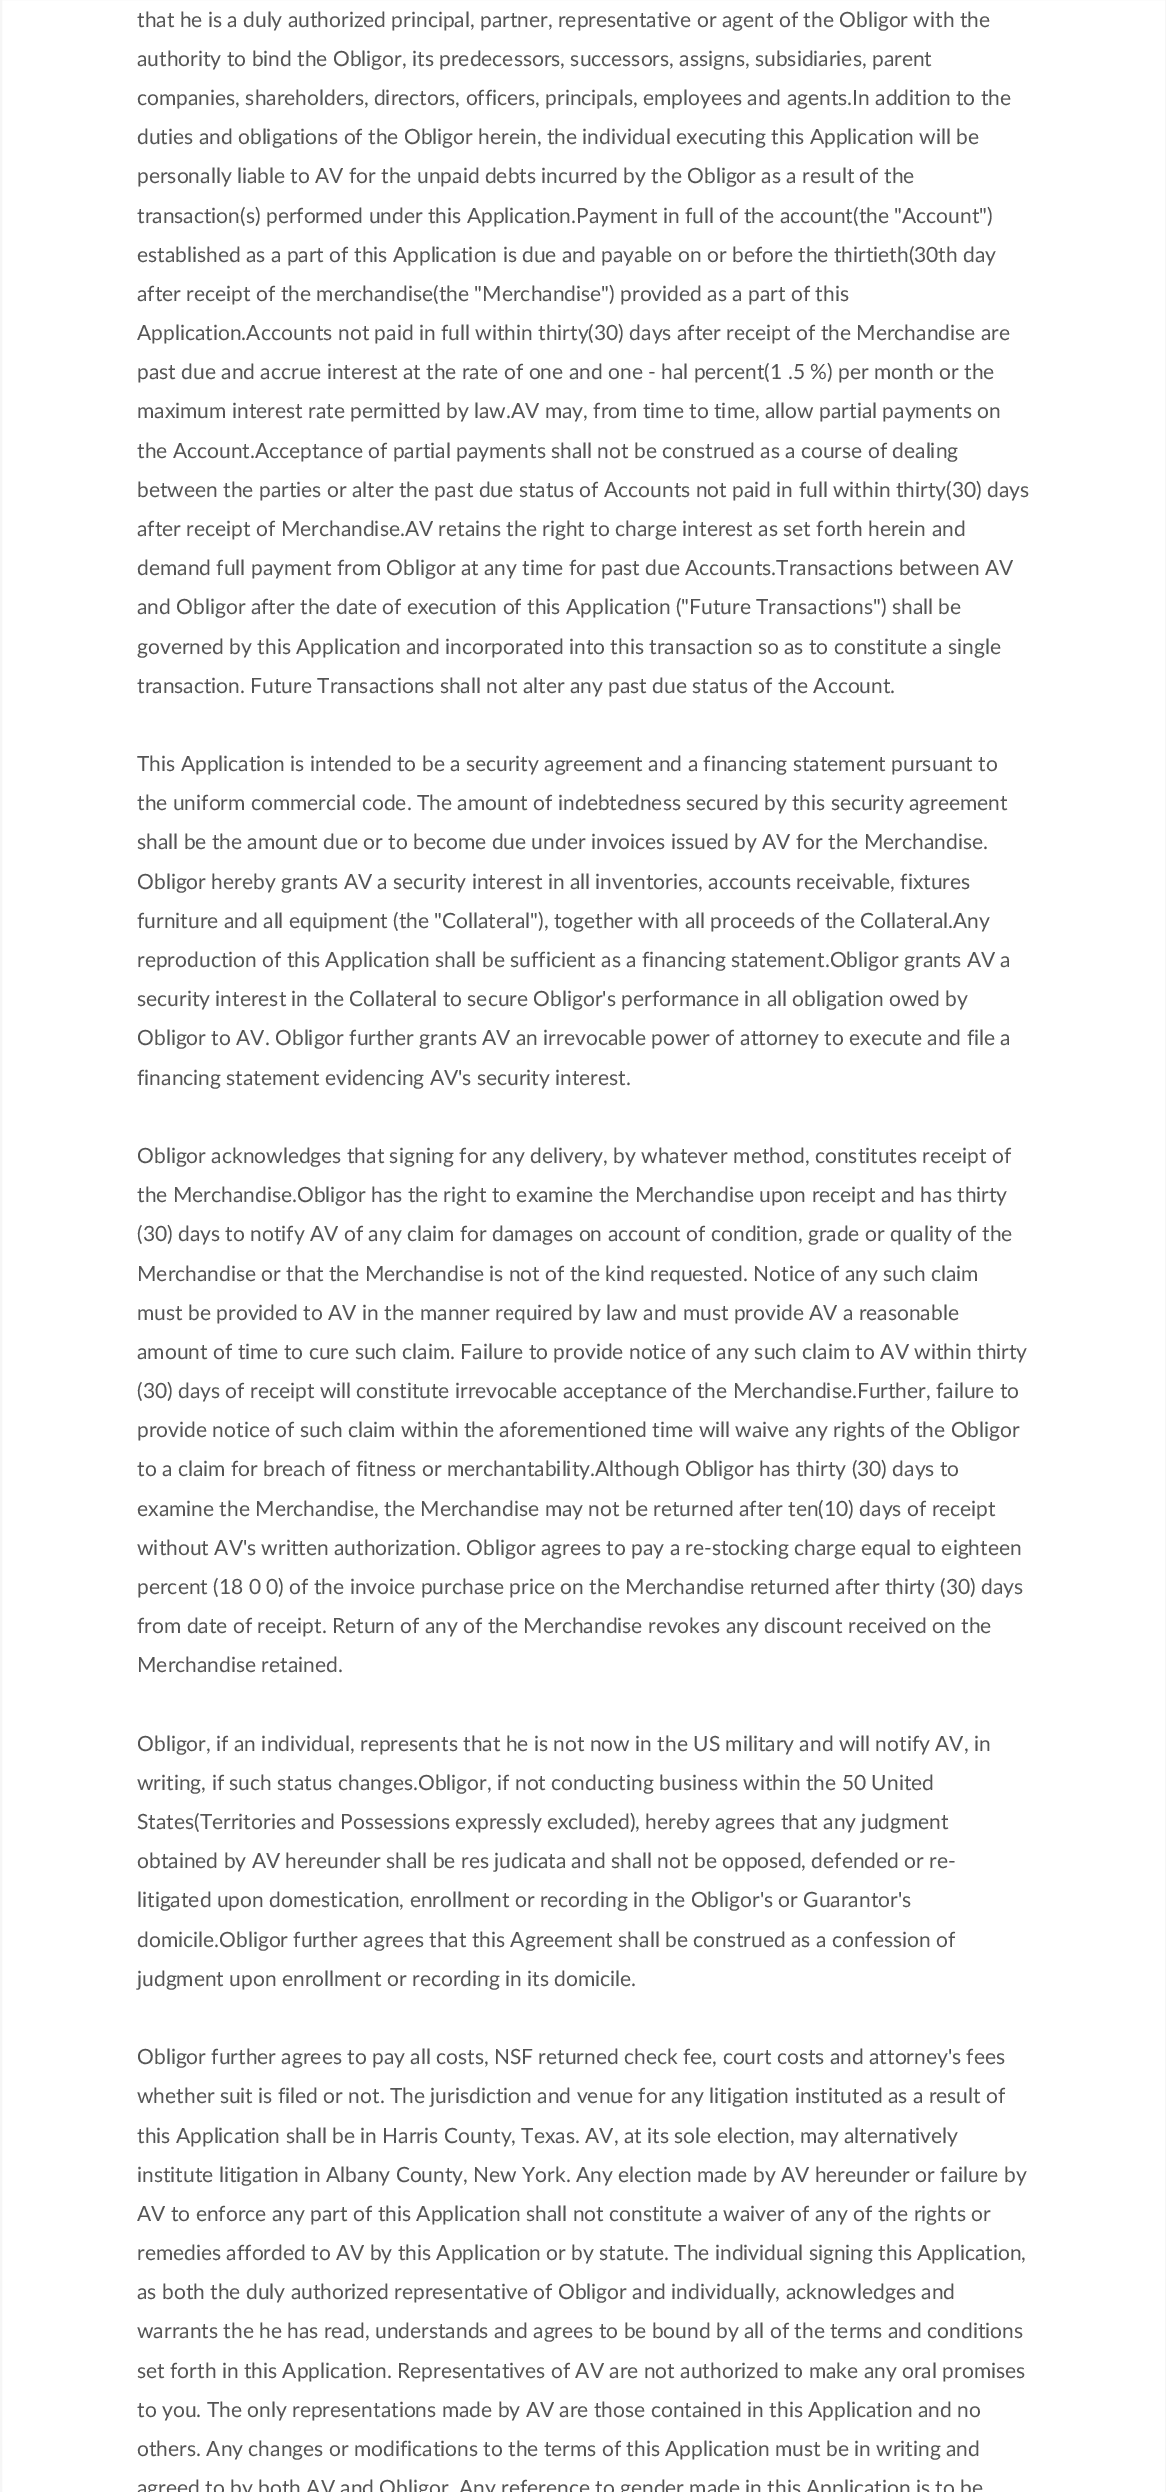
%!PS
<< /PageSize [1166 2492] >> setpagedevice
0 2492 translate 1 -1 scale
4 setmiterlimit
1 setgray
0 0 1166 2492 rectfill
0.965 setgray
2 setlinewidth
1 -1 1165 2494 rectstroke
/Lato-Regular [21 0 0 -21 0 0] selectfont
0.333 setgray
137 27 moveto (that he is a duly authorized principal, partner, representative or agent of the Obligor with the) show
137 66 moveto (authority to bind the Obligor, its predecessors, successors, assigns, subsidiaries, parent) show
137 105 moveto (companies, shareholders, directors, officers, principals, employees and agents.In addition to the) show
137 144 moveto (duties and obligations of the Obligor herein, the individual executing this Application will be) show
137 183 moveto (personally liable to AV for the unpaid debts incurred by the Obligor as a result of the) show
137 223 moveto (transaction\(s\) performed under this Application.Payment in full of the account\(the "Account"\)) show
137 262 moveto (established as a part of this Application is due and payable on or before the thirtieth\(30th day) show
137 301 moveto (after receipt of the merchandise\(the "Merchandise"\) provided as a part of this) show
137 340 moveto (Application.Accounts not paid in full within thirty\(30\) days after receipt of the Merchandise are) show
137 379 moveto (past due and accrue interest at the rate of one and one - hal percent\(1 .5 %\) per month or the) show
137 418 moveto (maximum interest rate permitted by law.AV may, from time to time, allow partial payments on) show
137 458 moveto (the Account.Acceptance of partial payments shall not be construed as a course of dealing) show
137 497 moveto (between the parties or alter the past due status of Accounts not paid in full within thirty\(30\) days) show
137 536 moveto (after receipt of Merchandise.AV retains the right to charge interest as set forth herein and) show
137 575 moveto (demand full payment from Obligor at any time for past due Accounts.Transactions between AV) show
137 614 moveto (and Obligor after the date of execution of this Application \("Future Transactions"\) shall be) show
137 654 moveto (governed by this Application and incorporated into this transaction so as to constitute a single) show
137 693 moveto (transaction. Future Transactions shall not alter any past due status of the Account.) show
137 771 moveto (This Application is intended to be a security agreement and a financing statement pursuant to) show
137 810 moveto (the uniform commercial code. The amount of indebtedness secured by this security agreement) show
137 849 moveto (shall be the amount due or to become due under invoices issued by AV for the Merchandise.) show
137 889 moveto (Obligor hereby grants AV a security interest in all inventories, accounts receivable, fixtures) show
137 928 moveto (furniture and all equipment \(the "Collateral"\), together with all proceeds of the Collateral.Any) show
137 967 moveto (reproduction of this Application shall be sufficient as a financing statement.Obligor grants AV a) show
137 1006 moveto (security interest in the Collateral to secure Obligor's performance in all obligation owed by) show
137 1045 moveto (Obligor to AV. Obligor further grants AV an irrevocable power of attorney to execute and file a) show
137 1085 moveto (financing statement evidencing AV's security interest.) show
137 1163 moveto (Obligor acknowledges that signing for any delivery, by whatever method, constitutes receipt of) show
137 1202 moveto (the Merchandise.Obligor has the right to examine the Merchandise upon receipt and has thirty) show
137 1241 moveto (\(30\) days to notify AV of any claim for damages on account of condition, grade or quality of the) show
137 1281 moveto (Merchandise or that the Merchandise is not of the kind requested. Notice of any such claim) show
137 1320 moveto (must be provided to AV in the manner required by law and must provide AV a reasonable) show
137 1359 moveto (amount of time to cure such claim. Failure to provide notice of any such claim to AV within thirty) show
137 1398 moveto (\(30\) days of receipt will constitute irrevocable acceptance of the Merchandise.Further, failure to) show
137 1437 moveto (provide notice of such claim within the aforementioned time will waive any rights of the Obligor) show
137 1476 moveto (to a claim for breach of fitness or merchantability.Although Obligor has thirty \(30\) days to) show
137 1516 moveto (examine the Merchandise, the Merchandise may not be returned after ten\(10\) days of receipt) show
137 1555 moveto (without AV's written authorization. Obligor agrees to pay a re-stocking charge equal to eighteen) show
137 1594 moveto (percent \(18 0 0\) of the invoice purchase price on the Merchandise returned after thirty \(30\) days) show
137 1633 moveto (from date of receipt. Return of any of the Merchandise revokes any discount received on the) show
137 1672 moveto (Merchandise retained.) show
137 1751 moveto (Obligor, if an individual, represents that he is not now in the US military and will notify AV, in) show
137 1790 moveto (writing, if such status changes.Obligor, if not conducting business within the 50 United) show
137 1829 moveto (States\(Territories and Possessions expressly excluded\), hereby agrees that any judgment) show
137 1868 moveto (obtained by AV hereunder shall be res judicata and shall not be opposed, defended or re-) show
137 1907 moveto (litigated upon domestication, enrollment or recording in the Obligor's or Guarantor's) show
137 1947 moveto (domicile.Obligor further agrees that this Agreement shall be construed as a confession of) show
137 1986 moveto (judgment upon enrollment or recording in its domicile.) show
137 2064 moveto (Obligor further agrees to pay all costs, NSF returned check fee, court costs and attorney's fees) show
137 2103 moveto (whether suit is filed or not. The jurisdiction and venue for any litigation instituted as a result of) show
137 2143 moveto (this Application shall be in Harris County, Texas. AV, at its sole election, may alternatively) show
137 2182 moveto (institute litigation in Albany County, New York. Any election made by AV hereunder or failure by) show
137 2221 moveto (AV to enforce any part of this Application shall not constitute a waiver of any of the rights or) show
137 2260 moveto (remedies afforded to AV by this Application or by statute. The individual signing this Application,) show
137 2299 moveto (as both the duly authorized representative of Obligor and individually, acknowledges and) show
137 2338 moveto (warrants the he has read, understands and agrees to be bound by all of the terms and conditions) show
137 2378 moveto (set forth in this Application. Representatives of AV are not authorized to make any oral promises) show
137 2417 moveto (to you. The only representations made by AV are those contained in this Application and no) show
137 2456 moveto (others. Any changes or modifications to the terms of this Application must be in writing and) show
137 2495 moveto (agreed to by both AV and Obligor. Any reference to gender made in this Application is to be) show
showpage
